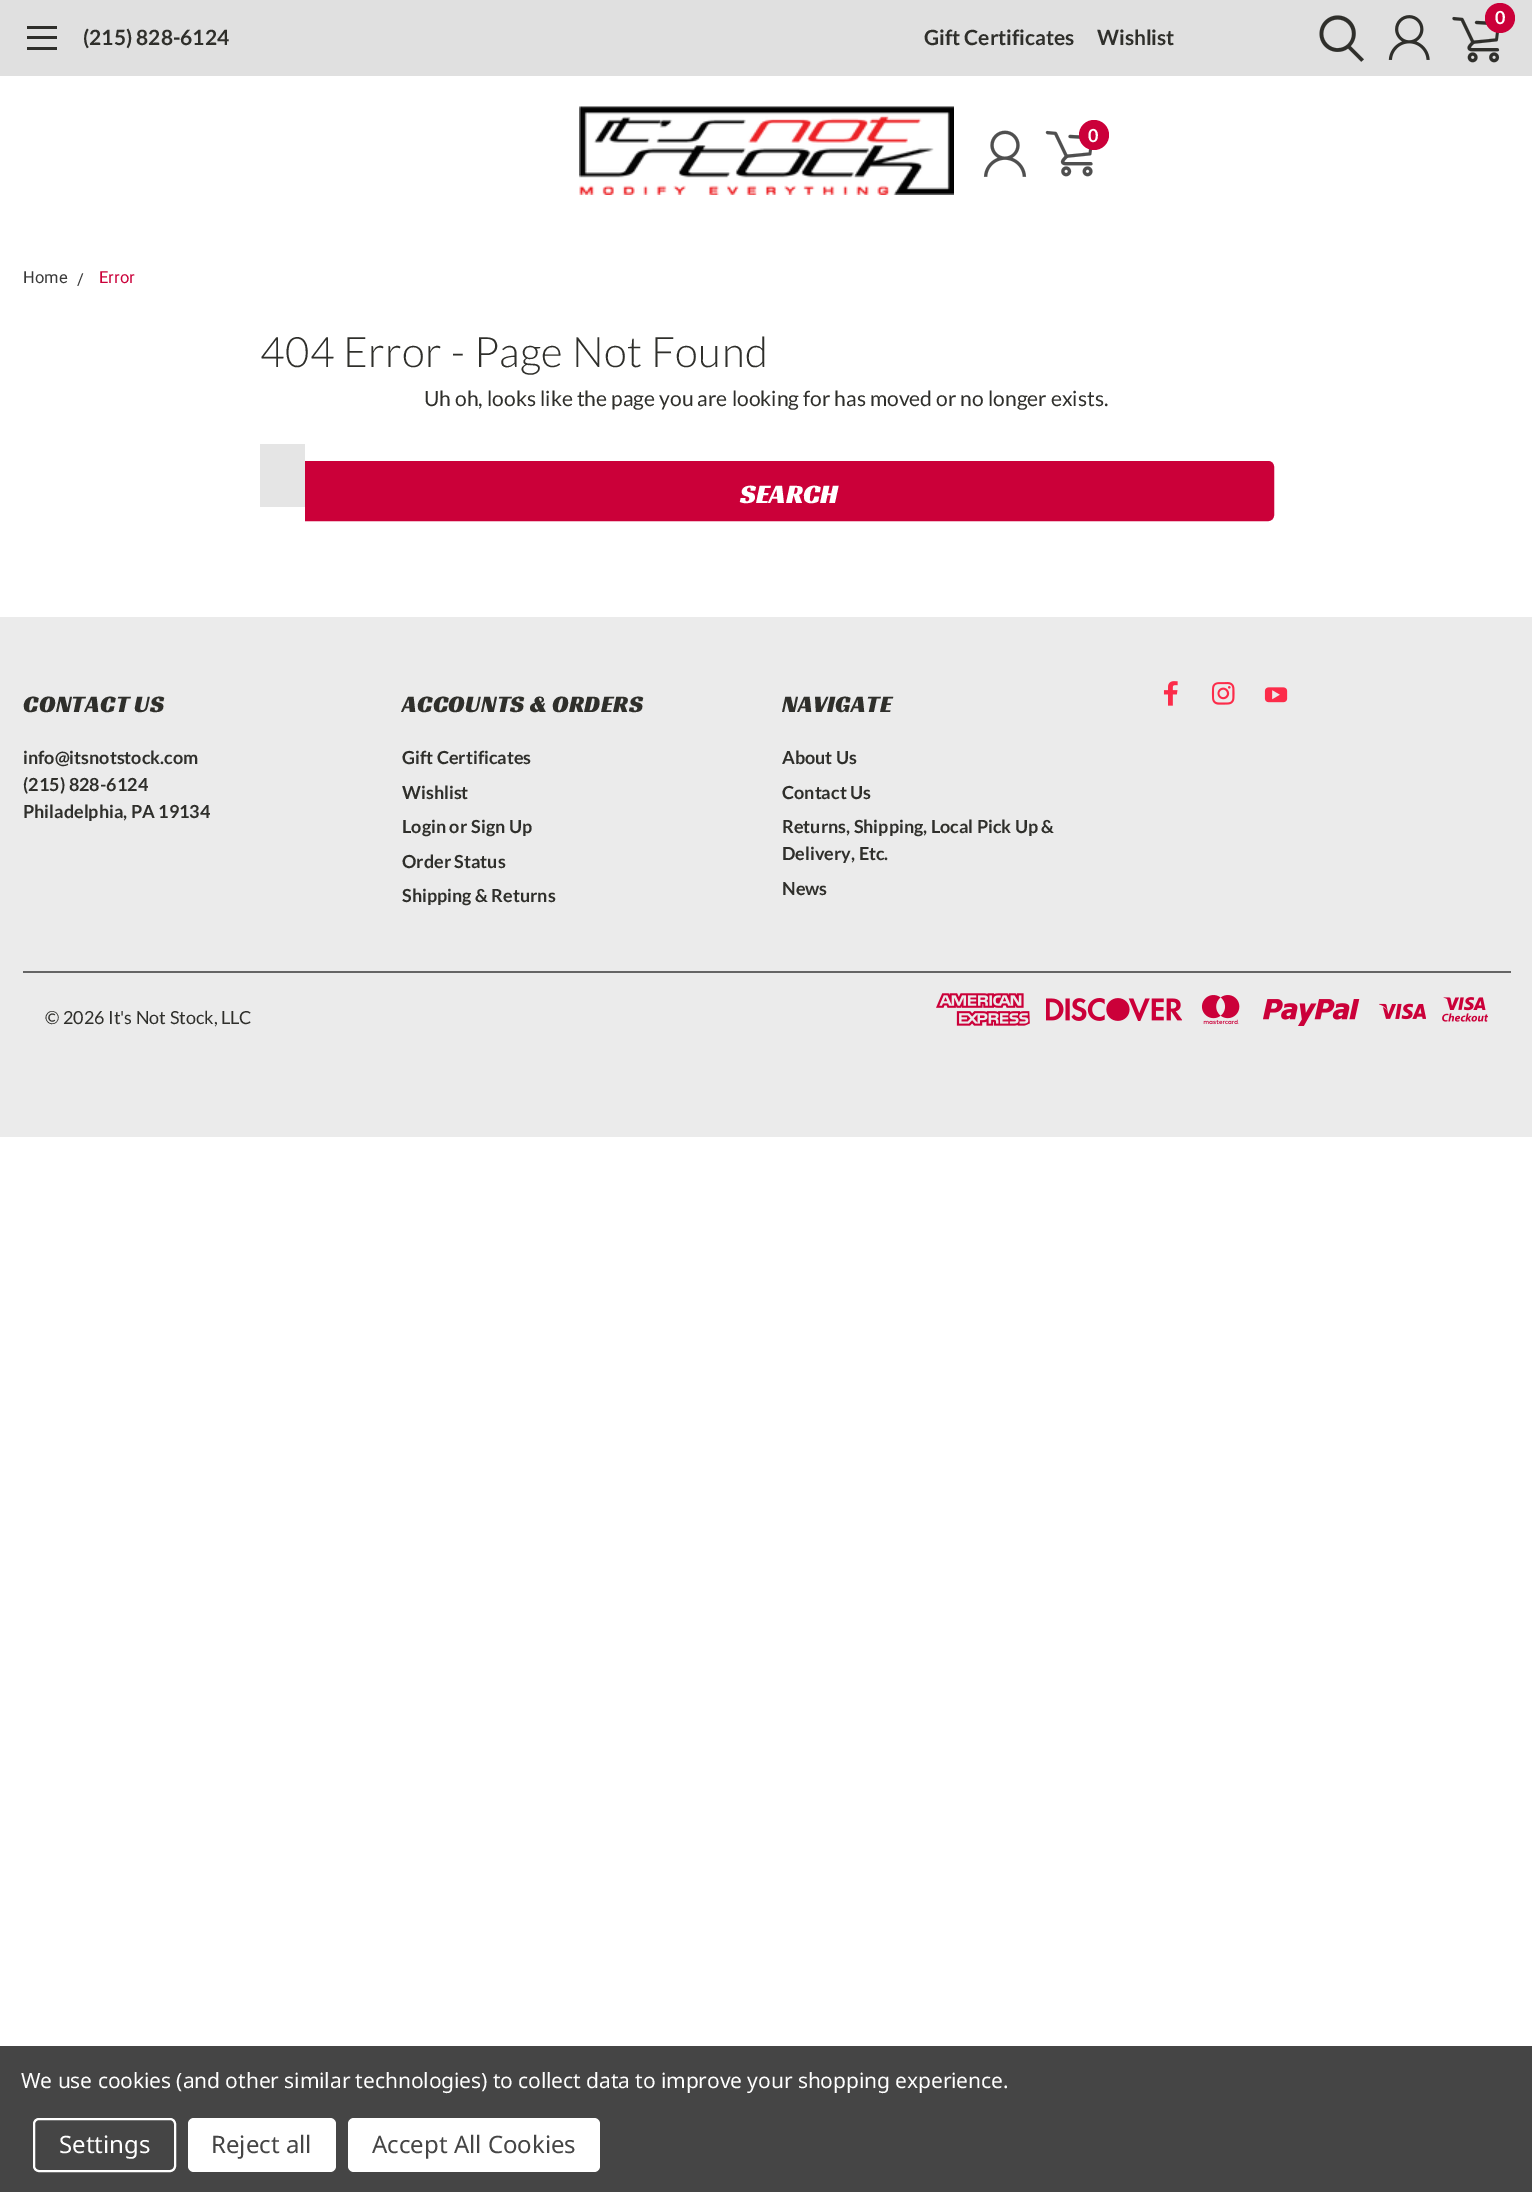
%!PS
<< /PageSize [1532 2192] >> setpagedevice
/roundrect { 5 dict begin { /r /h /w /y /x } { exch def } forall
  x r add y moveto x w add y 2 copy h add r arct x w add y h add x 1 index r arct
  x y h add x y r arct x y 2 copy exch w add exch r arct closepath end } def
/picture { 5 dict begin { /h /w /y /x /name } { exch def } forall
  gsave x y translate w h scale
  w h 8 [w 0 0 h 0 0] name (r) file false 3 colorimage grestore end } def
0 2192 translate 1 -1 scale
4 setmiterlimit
1 setgray
0 0 1532 2192 rectfill
0.878 setgray
0 0 1532 76 rectfill
(img1.rgb) 1319 15 45 47 picture
(img2.rgb) 1388 15 42 45 picture
(img3.rgb) 1452 16 48 47 picture
0.796 0 0.224 setrgbcolor
newpath 1500 18 15 0 360 arc closepath fill
/Lato-Bold [18 0 0 -18 0 0] selectfont
1 setgray
1495 24 moveto (0) show
0.184 0.184 0.169 setrgbcolor
27 36 30 3 rectfill
27 26 30 3 rectfill
27 47 30 3 rectfill
/Lato-Bold [21 0 0 -21 0 0] selectfont
83 45 moveto (\(215\) 828-6124) show
924 45 moveto (Gift Certificates) show
1097 45 moveto (Wishlist) show
(img4.rgb) 579 106 375 89 picture
(img5.rgb) 983 130 44 47 picture
(img6.rgb) 1045 130 48 47 picture
0.796 0 0.224 setrgbcolor
newpath 1094 135 15 0 360 arc closepath fill
/Lato-Bold [18 0 0 -18 0 0] selectfont
1 setgray
1088 142 moveto (0) show
/Roboto-Regular [16.5 0 0 -16.5 0 0] selectfont
0.224 setgray
23 283 moveto (Home) show
77 285 moveto (/) show
0.796 0 0.224 setrgbcolor
99 283 moveto (Error) show
/Lato-Light [42 0 0 -42 0 0] selectfont
0.184 0.184 0.169 setrgbcolor
260 367 moveto 0.4 0 (404 Error - Page Not Found) ashow
/Lato-Regular [21 0 0 -21 0 0] selectfont
424 406 moveto (Uh oh, looks like the page you are looking for has moved or no longer exists.) show
0.898 setgray
260 444 45 63 rectfill
0.796 0 0.224 setrgbcolor
newpath 306 462 moveto 1268 462 lineto 1271 462 1273 464 1273 467 curveto 1273 515 lineto 1273 518 1271 520 1268 520 curveto 306 520 lineto closepath gsave fill grestore
2 setlinewidth
stroke
/RacingSansOne-Regular [27 0 0 -27 0 0] selectfont
1 setgray
740 503 moveto (SEARCH) show
0.922 setgray
0 617 1532 520 rectfill
(img7.rgb) 1163 681 15 25 picture
(img8.rgb) 1211 682 24 23 picture
(img9.rgb) 1264 687 24 16 picture
/RacingSansOne-Regular [24 0 0 -24 0 0] selectfont
0.184 0.184 0.169 setrgbcolor
23 712 moveto 0.4 0 (CONTACT US) ashow
/Lato-Bold [18 0 0 -18 0 0] selectfont
23 764 moveto (info@itsnotstock.com) show
23 791 moveto (\(215\) 828-6124) show
23 818 moveto (Philadelphia, PA 19134) show
/RacingSansOne-Regular [24 0 0 -24 0 0] selectfont
402 712 moveto 0.4 0 (ACCOUNTS & ORDERS) ashow
/Lato-Bold [18 0 0 -18 0 0] selectfont
402 764 moveto (Gift Certificates) show
402 799 moveto (Wishlist) show
402 833 moveto (Login or) show
471 833 moveto (Sign Up) show
402 868 moveto (Order Status) show
402 902 moveto (Shipping & Returns) show
/RacingSansOne-Regular [24 0 0 -24 0 0] selectfont
782 712 moveto 0.4 0 (NAVIGATE) ashow
/Lato-Bold [18 0 0 -18 0 0] selectfont
782 764 moveto (About Us) show
782 799 moveto (Contact Us) show
782 833 moveto (Returns, Shipping, Local Pick Up &) show
782 860 moveto (Delivery, Etc.) show
782 895 moveto (News) show
0.396 setgray
23 971 1488 2 rectfill
/Lato-Regular [18 0 0 -18 0 0] selectfont
0.184 0.184 0.169 setrgbcolor
45 1024 moveto (© 2026 It's Not Stock, LLC) show
(img10.rgb) 936 993 94 33 picture
(img11.rgb) 1046 998 136 23 picture
(img12.rgb) 1201 995 39 30 picture
(img13.rgb) 1263 999 97 27 picture
(img14.rgb) 1379 1003 47 17 picture
(img15.rgb) 1442 997 46 25 picture
0.271 setgray
0 2046 1532 146 rectfill
/NotoSans-Regular [21 0 0 -21 0 0] selectfont
1 setgray
21 2088 moveto -0.08 0 (We use cookies \(and other similar technologies\) to collect data to improve your shopping experience.) ashow
34 2119 141 52 5 roundrect stroke
/NotoSans-Regular [24 0 0 -24 0 0] selectfont
59 2153 moveto (Settings) show
188 2118 148 54 6 roundrect fill
0.271 setgray
211 2153 moveto (Reject all) show
1 setgray
348 2118 252 54 6 roundrect fill
0.271 setgray
372 2153 moveto (Accept All Cookies) show
showpage
